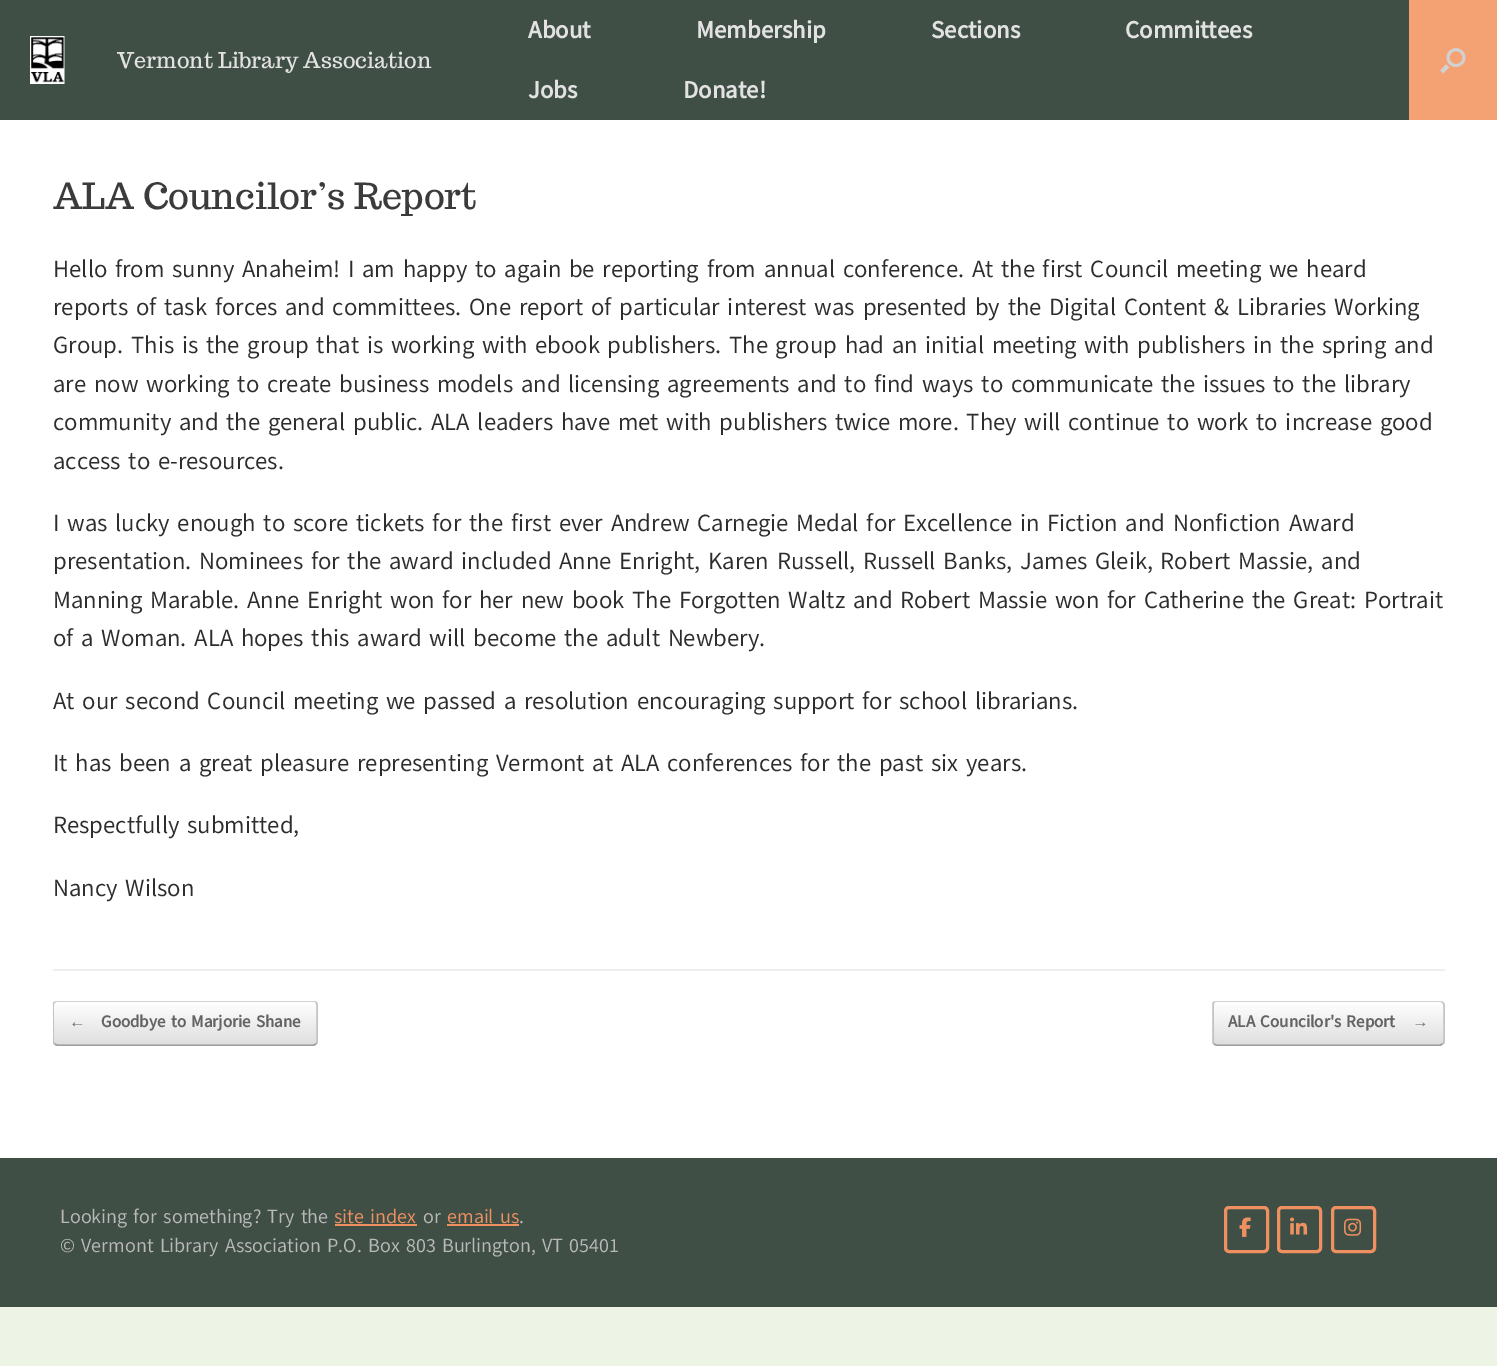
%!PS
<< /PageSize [1497 1366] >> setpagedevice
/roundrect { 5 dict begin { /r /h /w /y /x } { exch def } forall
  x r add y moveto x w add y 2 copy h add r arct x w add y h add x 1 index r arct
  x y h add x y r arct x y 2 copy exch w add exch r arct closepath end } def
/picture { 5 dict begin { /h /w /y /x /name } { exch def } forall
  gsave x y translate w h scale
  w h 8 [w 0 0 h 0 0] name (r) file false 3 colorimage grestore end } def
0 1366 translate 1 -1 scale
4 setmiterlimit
0.929 0.957 0.902 setrgbcolor
0 0 1497 1366 rectfill
0.247 0.31 0.275 setrgbcolor
0 0 1409 120 rectfill
(img1.rgb) 30 36 35 48 picture
/Trocchi-Regular [21.6 0 0 -21.6 0 0] selectfont
0.886 setgray
117 68 moveto (Vermont Library Association) show
/Akatab-Bold [24 0 0 -24 0 0] selectfont
528 38 moveto (About) show
696 38 moveto (Membership) show
931 38 moveto (Sections) show
1125 38 moveto (Committees) show
528 98 moveto (Jobs) show
683 98 moveto (Donate!) show
0.957 0.635 0.451 setrgbcolor
1409 0 88 120 rectfill
(img2.rgb) 1440 48 26 26 picture
1 setgray
0 120 1497 1038 rectfill
0.933 setgray
53 969 1392 2 rectfill
/Trocchi-Regular [36 0 0 -36 0 0] selectfont
0.231 setgray
53 209 moveto (ALA Councilor’s Report) show
/Akatab-Regular [24 0 0 -24 0 0] selectfont
0.176 setgray
53 277 moveto (Hello from sunny Anaheim! I am happy to again be reporting from annual conference. At the first Council meeting we heard) show
53 315 moveto (reports of task forces and committees. One report of particular interest was presented by the Digital Content & Libraries Working) show
53 353 moveto (Group. This is the group that is working with ebook publishers. The group had an initial meeting with publishers in the spring and) show
53 392 moveto (are now working to create business models and licensing agreements and to find ways to communicate the issues to the library) show
53 430 moveto (community and the general public. ALA leaders have met with publishers twice more. They will continue to work to increase good) show
53 469 moveto (access to e-resources.) show
53 531 moveto (I was lucky enough to score tickets for the first ever Andrew Carnegie Medal for Excellence in Fiction and Nonfiction Award) show
53 569 moveto (presentation. Nominees for the award included Anne Enright, Karen Russell, Russell Banks, James Gleik, Robert Massie, and) show
53 608 moveto (Manning Marable. Anne Enright won for her new book The Forgotten Waltz and Robert Massie won for Catherine the Great: Portrait) show
53 646 moveto (of a Woman. ALA hopes this award will become the adult Newbery.) show
53 709 moveto (At our second Council meeting we passed a resolution encouraging support for school librarians.) show
53 771 moveto (It has been a great pleasure representing Vermont at ALA conferences for the past six years.) show
53 833 moveto (Respectfully submitted,) show
53 896 moveto (Nancy Wilson) show
gsave
53 1001 265 45 5 roundrect clip newpath
gsave newpath 53 1002 moveto 318 1002 lineto 318 1044 lineto 53 1044 lineto closepath clip newpath
<< /ShadingType 2 /ColorSpace /DeviceRGB /Coords [54 1044 54 1002] /Extend [true true] /Function << /FunctionType 2 /Domain [0 1] /C0 [0.875 0.875 0.875] /C1 [1 1 1] /N 1 >> >> shfill grestore
grestore
gsave
53 1001 1392 45 rectclip
0.824 setgray
1.5 setlinewidth
newpath 54.5 1002.5 moveto 55 1001.5 56 1001 57 1001 curveto 313.5 1001 lineto 314.5 1001 315.5 1001.5 316 1002.5 curveto stroke
grestore
0.765 setgray
1.5 setlinewidth
newpath 316 1002.5 moveto 317 1003 317 1004 317 1005 curveto 317 1041 lineto 317 1042 317 1043 316 1043.5 curveto stroke
0.624 setgray
newpath 316 1043.5 moveto 315.5 1044.5 314.5 1045 313.5 1045 curveto 57 1045 lineto 56 1045 55 1044.5 54.5 1043.5 curveto stroke
gsave
53 1001 1392 45 rectclip
0.765 setgray
newpath 54.5 1043.5 moveto 53.5 1043 53 1042 53 1041 curveto 53 1005 lineto 53 1004 53.5 1003 54.5 1002.5 curveto stroke
grestore
/LiberationSerif-Bold [16.5 0 0 -16.5 0 0] selectfont
0.392 setgray
69 1027 moveto (←) show
/Akatab-Bold [16.5 0 0 -16.5 0 0] selectfont
101 1027 moveto (Goodbye to Marjorie Shane) show
gsave
1212 1001 233 45 5 roundrect clip newpath
gsave newpath 1212 1002 moveto 1445 1002 lineto 1445 1044 lineto 1212 1044 lineto closepath clip newpath
<< /ShadingType 2 /ColorSpace /DeviceRGB /Coords [1214 1044 1214 1002] /Extend [true true] /Function << /FunctionType 2 /Domain [0 1] /C0 [0.875 0.875 0.875] /C1 [1 1 1] /N 1 >> >> shfill grestore
grestore
gsave
53 1001 1392 45 rectclip
0.824 setgray
newpath 1214 1002.5 moveto 1214.5 1001.5 1215.5 1001 1216.5 1001 curveto 1440 1001 lineto 1441 1001 1442 1001.5 1442.5 1002.5 curveto stroke
grestore
0.765 setgray
newpath 1442.5 1002.5 moveto 1443.5 1003 1444 1004 1444 1005 curveto 1444 1041 lineto 1444 1042 1443.5 1043 1442.5 1043.5 curveto stroke
0.624 setgray
newpath 1442.5 1043.5 moveto 1442 1044.5 1441 1045 1440 1045 curveto 1216.5 1045 lineto 1215.5 1045 1214.5 1044.5 1214 1043.5 curveto stroke
0.765 setgray
newpath 1214 1043.5 moveto 1213 1043 1213 1042 1213 1041 curveto 1213 1005 lineto 1213 1004 1213 1003 1214 1002.5 curveto stroke
0.392 setgray
1228 1027 moveto (ALA Councilor's Report) show
/LiberationSerif-Bold [16.5 0 0 -16.5 0 0] selectfont
1412 1027 moveto (→) show
0.247 0.31 0.275 setrgbcolor
0 1158 1497 149 rectfill
/Akatab-Regular [19.5 0 0 -19.5 0 0] selectfont
0.725 setgray
60 1223 moveto (Looking for something? Try the) show
0.933 0.565 0.376 setrgbcolor
334 1223 moveto (site index) show
335 1224 82 2 rectfill
0.725 setgray
423 1223 moveto (or) show
0.933 0.565 0.376 setrgbcolor
447 1223 moveto (email us) show
447 1224 72 2 rectfill
0.725 setgray
519 1223 moveto (.) show
60 1252 moveto (© Vermont Library Association P.O. Box 803 Burlington, VT 05401) show
0.933 0.565 0.376 setrgbcolor
3 setlinewidth
1225.5 1207.5 42 44 3.5 roundrect stroke
(img3.rgb) 1239 1217 12 20 picture
1278.5 1207.5 42 44 3.5 roundrect stroke
(img4.rgb) 1290 1217 18 18 picture
1332.5 1207.5 42 44 3.5 roundrect stroke
(img5.rgb) 1344 1218 18 18 picture
showpage
